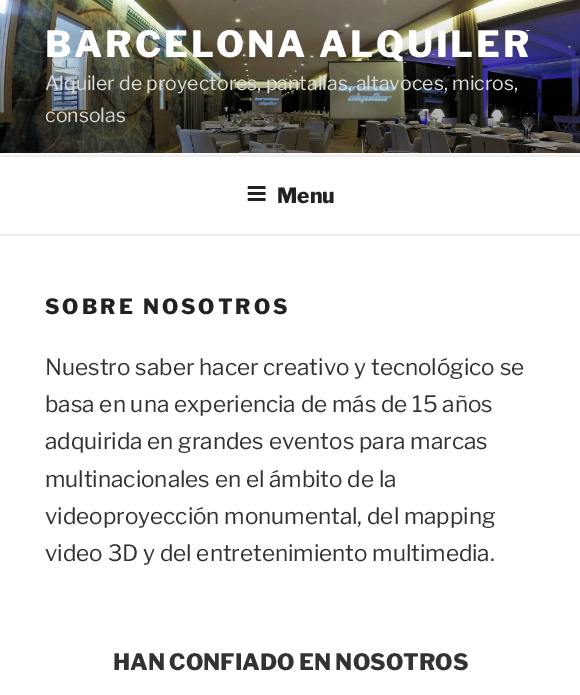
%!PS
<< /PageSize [580 695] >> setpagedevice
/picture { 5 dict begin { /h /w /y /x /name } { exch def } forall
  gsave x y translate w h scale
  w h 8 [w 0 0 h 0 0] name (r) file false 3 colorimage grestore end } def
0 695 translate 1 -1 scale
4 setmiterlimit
1 setgray
0 0 580 695 rectfill
0.98 setgray
0 153 580 2 rectfill
(img1.rgb) 0 0 580 153 picture
/LibreFranklin-ExtraBold [36 0 0 -36 0 0] selectfont
1 setgray
45 57 moveto 2.9 0 (BARCELONA ALQUILER) ashow
/LibreFranklin-Regular [19.5 0 0 -19.5 0 0] selectfont
0.859 0.863 0.851 setrgbcolor
45 90 moveto (Alquiler de proyectores, pantallas, altavoces, micros,) show
0.839 0.839 0.827 setrgbcolor
45 122 moveto (consolas) show
0.933 setgray
0 155 580 2 rectfill
0 234 580 2 rectfill
(img2.rgb) 247 186 19 15 picture
/LibreFranklin-ExtraBold [21 0 0 -21 0 0] selectfont
0.133 setgray
277 203 moveto (Menu) show
45 314 moveto 3 0 (SOBRE NOSOTROS) ashow
/LibreFranklin-Regular [22.5 0 0 -22.5 0 0] selectfont
0.2 setgray
45 375 moveto (Nuestro saber hacer creativo y tecnológico se) show
45 412 moveto (basa en una experiencia de más de 15 años) show
45 449 moveto (adquirida en grandes eventos para marcas) show
45 487 moveto (multinacionales en el ámbito de la) show
45 524 moveto (videoproyección monumental, del mapping) show
45 561 moveto (video 3D y del entretenimiento multimedia.) show
/LibreFranklin-ExtraBold [22.5 0 0 -22.5 0 0] selectfont
113 670 moveto (HAN CONFIADO EN NOSOTROS) show
showpage
